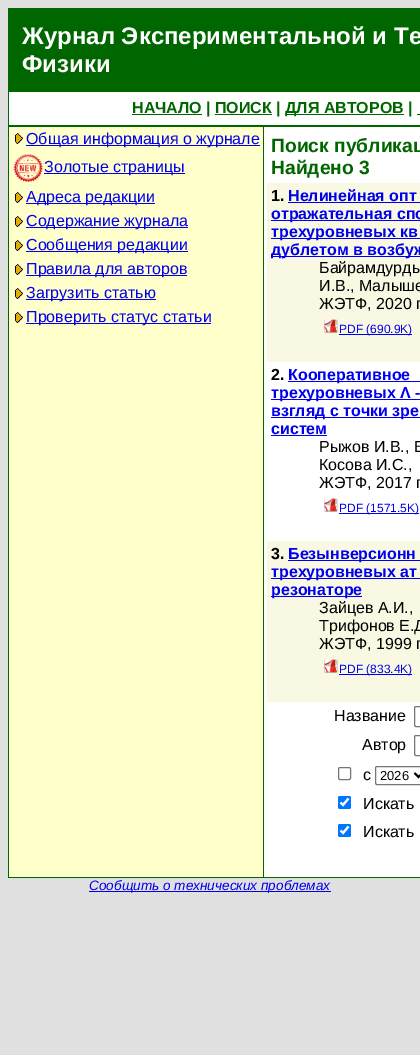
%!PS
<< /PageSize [420 1055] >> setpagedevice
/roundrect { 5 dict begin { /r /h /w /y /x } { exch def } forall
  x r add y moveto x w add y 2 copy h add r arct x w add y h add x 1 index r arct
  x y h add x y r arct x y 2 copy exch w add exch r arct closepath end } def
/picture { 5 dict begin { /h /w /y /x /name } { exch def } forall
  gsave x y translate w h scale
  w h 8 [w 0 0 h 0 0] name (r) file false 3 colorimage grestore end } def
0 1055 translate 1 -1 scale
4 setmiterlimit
0.878 setgray
0 0 420 1055 rectfill
0 0.4 0 setrgbcolor
8 8 412 870 rectfill
1 setgray
9 92 411 785 rectfill
/LiberationSans-Bold [24 0 0 -24 0 0] selectfont
22 44 moveto (Журнал Экспериментальной и Те) show
22 72 moveto (Физики) show
0 0.4 0 setrgbcolor
132 114 70 1 rectfill
/LiberationSans-Bold [16 0 0 -16 0 0] selectfont
132 113 moveto (НАЧАЛО | ПОИСК |) show
285 114 119 1 rectfill
285 113 moveto (ДЛЯ АВТОРОВ |) show
215 114 57 1 rectfill
417 114 3 1 rectfill
9 125 411 2 rectfill
1 1 0.8 setrgbcolor
9 127 254 750 rectfill
(img1.rgb) 14 133 9 11 picture
0 0 0.933 setrgbcolor
26 145 234 1 rectfill
/LiberationSans-Regular [16 0 0 -16 0 0] selectfont
26 144 moveto (Общая информация о журнале) show
(img2.rgb) 12 154 31 28 picture
44 173 141 1 rectfill
44 172 moveto (Золотые страницы) show
(img1.rgb) 14 192 9 11 picture
26 203 129 1 rectfill
26 202 moveto (Адреса редакции) show
(img1.rgb) 14 216 9 11 picture
26 227 162 1 rectfill
26 226 moveto (Содержание журнала) show
(img1.rgb) 14 240 9 11 picture
26 251 162 1 rectfill
26 250 moveto (Сообщения редакции) show
(img1.rgb) 14 264 9 11 picture
26 275 161 1 rectfill
26 274 moveto (Правила для авторов) show
(img1.rgb) 14 288 9 11 picture
26 299 130 1 rectfill
26 298 moveto (Загрузить статью) show
(img1.rgb) 14 312 9 11 picture
26 323 185 1 rectfill
26 322 moveto (Проверить статус статьи) show
0 0.4 0 setrgbcolor
263 127 1 750 rectfill
/LiberationSans-Bold [19.25 0 0 -19.25 0 0] selectfont
271 152 moveto (Поиск публикац) show
271 174 moveto (Найдено 3) show
0.973 0.973 0.89 setrgbcolor
267 183 153 179 rectfill
/LiberationSans-Bold [16 0 0 -16 0 0] selectfont
0 setgray
271 201 moveto (1.) show
0 0 0.933 setrgbcolor
288 201 moveto (Нелинейная опт) show
288 202 132 1 rectfill
271 220 149 1 rectfill
271 219 moveto (отражательная спо) show
271 238 149 1 rectfill
271 237 moveto (трехуровневых кв) show
271 256 149 1 rectfill
271 255 moveto (дублетом в возбуж) show
/LiberationSans-Regular [16 0 0 -16 0 0] selectfont
0 setgray
319 273 moveto (Байрамдурды) show
319 291 moveto (И.В., Малыше) show
319 309 moveto (ЖЭТФ, 2020 г) show
(img3.rgb) 324 319 14 14 picture
0 0 0.933 setrgbcolor
339 334 73 1 rectfill
/LiberationSans-Regular [12 0 0 -12 0 0] selectfont
339 333 moveto (PDF \(690.9K\)) show
/LiberationSans-Bold [16 0 0 -16 0 0] selectfont
0 setgray
271 380 moveto (2.) show
0 0 0.933 setrgbcolor
288 381 132 1 rectfill
288 380 moveto (Кооперативное) show
271 399 149 1 rectfill
271 398 moveto (трехуровневых Λ -) show
271 417 149 1 rectfill
271 416 moveto (взгляд с точки зре) show
271 434 moveto (систем) show
271 435 56 1 rectfill
/LiberationSans-Regular [16 0 0 -16 0 0] selectfont
0 setgray
319 452 moveto (Рыжов И.В., В) show
319 470 moveto (Косова И.С.,) show
319 488 moveto (ЖЭТФ, 2017 г) show
(img4.rgb) 324 498 14 14 picture
0 0 0.933 setrgbcolor
339 513 80 1 rectfill
/LiberationSans-Regular [12 0 0 -12 0 0] selectfont
339 512 moveto (PDF \(1571.5K\)) show
0.973 0.973 0.89 setrgbcolor
267 541 153 161 rectfill
/LiberationSans-Bold [16 0 0 -16 0 0] selectfont
0 setgray
271 559 moveto (3.) show
0 0 0.933 setrgbcolor
288 560 132 1 rectfill
288 559 moveto (Безынверсионн) show
271 578 149 1 rectfill
271 577 moveto (трехуровневых ат) show
271 596 91 1 rectfill
271 595 moveto (резонаторе) show
/LiberationSans-Regular [16 0 0 -16 0 0] selectfont
0 setgray
319 613 moveto (Зайцев А.И.,) show
319 631 moveto (Трифонов Е.Д) show
319 649 moveto (ЖЭТФ, 1999 г) show
(img3.rgb) 324 659 14 14 picture
0 0 0.933 setrgbcolor
339 674 73 1 rectfill
/LiberationSans-Regular [12 0 0 -12 0 0] selectfont
339 673 moveto (PDF \(833.4K\)) show
/LiberationSans-Regular [16 0 0 -16 0 0] selectfont
0 setgray
334 721 moveto (Название) show
0.463 setgray
414.5 706.5 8 20 1.5 roundrect stroke
0 setgray
362 750 moveto (Автор) show
0.463 setgray
414.5 735.5 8 20 1.5 roundrect stroke
338.5 767.5 12 12 1.5 roundrect stroke
0 setgray
363 780 moveto (с) show
0.463 setgray
375.5 766.5 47 18 1.5 roundrect stroke
0 setgray
2 setlinewidth
newpath 414.5 773 moveto 418.5 777 lineto 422.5 773 lineto stroke
/LiberationSans-Regular [13 0 0 -13 0 0] selectfont
380 780 moveto (2026) show
0 0.459 1 setrgbcolor
338 796 13 13 2 roundrect fill
1 setgray
2.1 setlinewidth
newpath 340.5 802.5 moveto 343 805 lineto 348.5 798.5 lineto stroke
/LiberationSans-Regular [16 0 0 -16 0 0] selectfont
0 setgray
363 809 moveto (Искать) show
0 0.459 1 setrgbcolor
338 824 13 13 2 roundrect fill
1 setgray
newpath 340.5 830.5 moveto 343 833 lineto 348.5 826.5 lineto stroke
0 setgray
363 837 moveto (Искать) show
0 0 0.933 setrgbcolor
89 891 242 1 rectfill
/LiberationSans-Italic [13.6 0 0 -13.6 0 0] selectfont
89 890 moveto (Сообщить о технических проблемах) show
showpage
